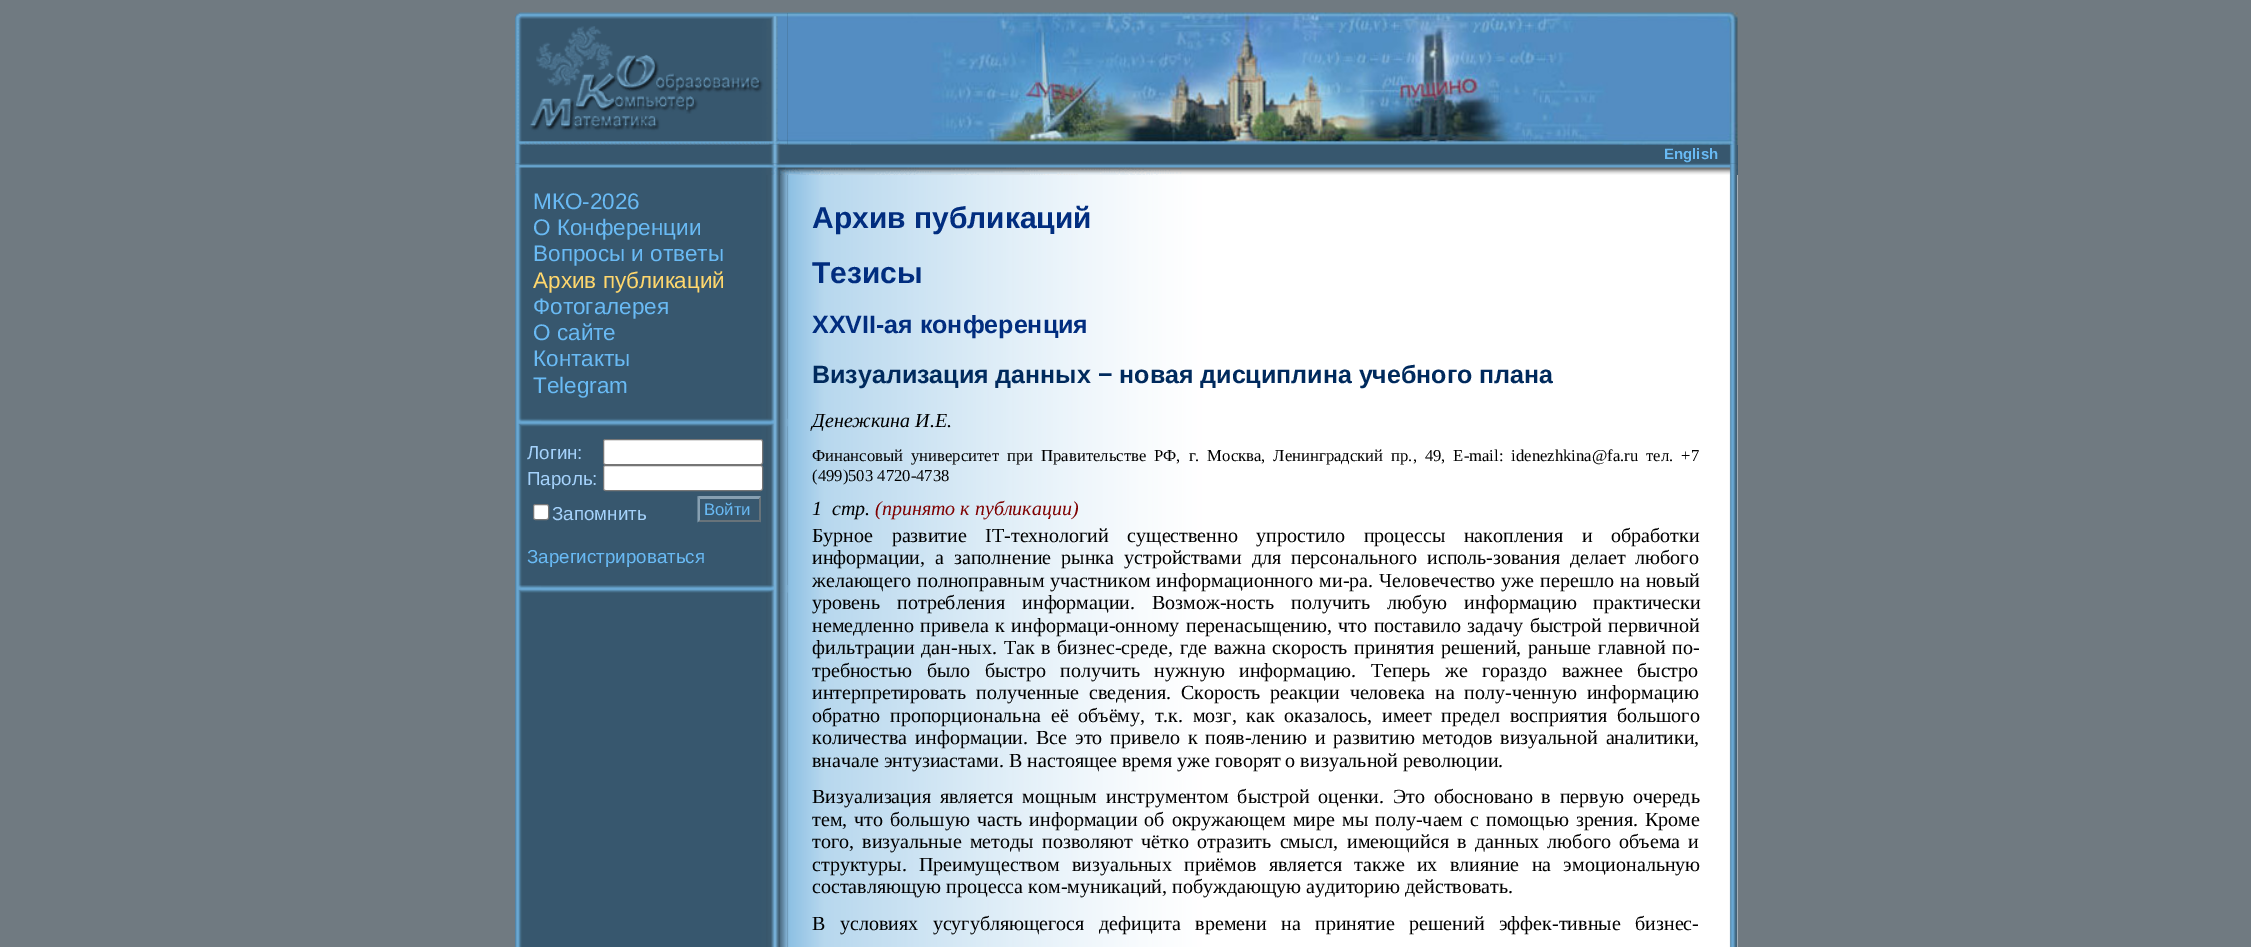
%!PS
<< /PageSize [2251 947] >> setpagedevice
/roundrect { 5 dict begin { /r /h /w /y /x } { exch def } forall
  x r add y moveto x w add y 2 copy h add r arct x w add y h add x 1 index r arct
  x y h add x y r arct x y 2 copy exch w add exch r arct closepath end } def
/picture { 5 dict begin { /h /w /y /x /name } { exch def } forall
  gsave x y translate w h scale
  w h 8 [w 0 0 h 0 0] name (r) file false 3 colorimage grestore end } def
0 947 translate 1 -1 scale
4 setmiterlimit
0.439 0.478 0.506 setrgbcolor
0 0 2251 947 rectfill
(img1.rgb) 515 12 273 133 picture
(img2.rgb) 787 12 951 133 picture
0.216 0.341 0.431 setrgbcolor
515 145 1223 19 rectfill
(img3.rgb) 515 145 1223 19 picture
/LiberationSans-Bold [15 0 0 -15 0 0] selectfont
0.412 0.729 0.957 setrgbcolor
1664 159 moveto (English) show
0.216 0.341 0.431 setrgbcolor
1737 164 1 11 rectfill
(img4.rgb) 515 163 1223 12 picture
(img5.rgb) 515 175 273 772 picture
/LiberationSans-Regular [22.5 0 0 -22.5 0 0] selectfont
0.412 0.729 0.957 setrgbcolor
533 209 moveto (МКО-2026) show
533 235 moveto (О Конференции) show
533 261 moveto (Вопросы и ответы) show
1 0.843 0.427 setrgbcolor
533 288 moveto (Архив публикаций) show
0.412 0.729 0.957 setrgbcolor
533 314 moveto (Фотогалерея) show
533 340 moveto (О сайте) show
533 366 moveto (Контакты) show
533 393 moveto (Telegram) show
(img6.rgb) 518 418 270 9 picture
/LiberationSans-Regular [18.75 0 0 -18.75 0 0] selectfont
0.647 0.824 0.984 setrgbcolor
527 459 moveto (Логин:) show
1 setgray
603.5 439.5 159 25 2 roundrect gsave fill grestore
0.463 setgray
stroke
0.647 0.824 0.984 setrgbcolor
527 485 moveto (Пароль:) show
1 setgray
603.5 465.5 159 25 2 roundrect gsave fill grestore
0.463 setgray
stroke
1 setgray
533.5 504.5 15 15 2 roundrect gsave fill grestore
0.463 setgray
stroke
0.647 0.824 0.984 setrgbcolor
552 520 moveto (Запомнить) show
0.529 0.627 0.698 setrgbcolor
newpath 698 496 moveto 761 496 lineto 759 499 lineto 700 499 lineto closepath fill
0.408 0.451 0.478 setrgbcolor
newpath 761 496 moveto 761 522.5 lineto 759 520 lineto 759 499 lineto closepath fill
newpath 761 522 moveto 698 522 lineto 700 520 lineto 759 520 lineto closepath fill
0.529 0.627 0.698 setrgbcolor
newpath 697.5 522.5 moveto 697.5 496 lineto 700 499 lineto 700 520 lineto closepath fill
/LiberationSans-Regular [16.67 0 0 -16.67 0 0] selectfont
0.412 0.729 0.957 setrgbcolor
704 515 moveto (Войти) show
/LiberationSans-Regular [18.75 0 0 -18.75 0 0] selectfont
527 563 moveto (Зарегистрироваться) show
(img7.rgb) 518 585 270 8 picture
1 setgray
1737 175 1 772 rectfill
(img8.rgb) 787 175 951 772 picture
/LiberationSans-Bold [30 0 0 -30 0 0] selectfont
0.004 0.176 0.498 setrgbcolor
812 228 moveto (Архив публикаций) show
812 283 moveto (Тезисы) show
/LiberationSans-Bold [25 0 0 -25 0 0] selectfont
812 333 moveto (XXVII-ая конференция) show
0 0.165 0.365 setrgbcolor
812 383 moveto (Визуализация данных − новая дисциплина учебного плана) show
/LiberationSerif-Italic [20 0 0 -20 0 0] selectfont
0 setgray
812 427 moveto (Денежкина И.Е.) show
/LiberationSerif-Regular [16.67 0 0 -16.67 0 0] selectfont
812 461 moveto 3.75 0 32 (Финансовый университет при Правительстве РФ, г. Москва, Ленинградский пр., 49, E-mail: idenezhkina@fa.ru тел. +7) widthshow
812 481 moveto (\(499\)503 4720-4738) show
/LiberationSerif-Italic [20 0 0 -20 0 0] selectfont
812 515 moveto (1  стр.) show
0.498 0 0 setrgbcolor
875 515 moveto (\(принято к публикации\)) show
/LiberationSerif-Regular [20 0 0 -20 0 0] selectfont
0 setgray
812 542 moveto 13.5 0 32 (Бурное развитие IT-технологий существенно упростило процессы накопления и обработки) widthshow
812 564 moveto 5 0 32 (информации, а заполнение рынка устройствами для персонального исполь-зования делает любого) widthshow
812 587 moveto 1 0 32 (желающего полноправным участником информационного ми-ра. Человечество уже перешло на новый) widthshow
812 609 moveto 12 0 32 (уровень потребления информации. Возмож-ность получить любую информацию практически) widthshow
812 632 moveto 1.5 0 32 (немедленно привела к информаци-онному перенасыщению, что поставило задачу быстрой первичной) widthshow
812 654 moveto 1.75 0 32 (фильтрации дан-ных. Так в бизнес-среде, где важна скорость принятия решений, раньше главной по-) widthshow
812 677 moveto 9.5 0 32 (требностью было быстро получить нужную информацию. Теперь же гораздо важнее быстро) widthshow
812 699 moveto 4.75 0 32 (интерпретировать полученные сведения. Скорость реакции человека на полу-ченную информацию) widthshow
812 722 moveto 4.6 0 32 (обратно пропорциональна её объёму, т.к. мозг, как оказалось, имеет предел восприятия большого) widthshow
812 744 moveto 2.9 0 32 (количества информации. Все это привело к появ-лению и развитию методов визуальной аналитики,) widthshow
812 767 moveto (вначале энтузиастами. В настоящее время уже говорят о визуальной революции.) show
812 803 moveto 3.9 0 32 (Визуализация является мощным инструментом быстрой оценки. Это обосновано в первую очередь) widthshow
812 826 moveto 2 0 32 (тем, что большую часть информации об окружающем мире мы полу-чаем с помощью зрения. Кроме) widthshow
812 848 moveto 3.4 0 32 (того, визуальные методы позволяют чётко отразить смысл, имеющийся в данных любого объема и) widthshow
812 871 moveto 7.25 0 32 (структуры. Преимуществом визуальных приёмов является также их влияние на эмоциональную) widthshow
812 893 moveto (составляющую процесса ком-муникаций, побуждающую аудиторию действовать.) show
812 930 moveto 9.5 0 32 (В условиях усугубляющегося дефицита времени на принятие решений эффек-тивные бизнес‐) widthshow
showpage
